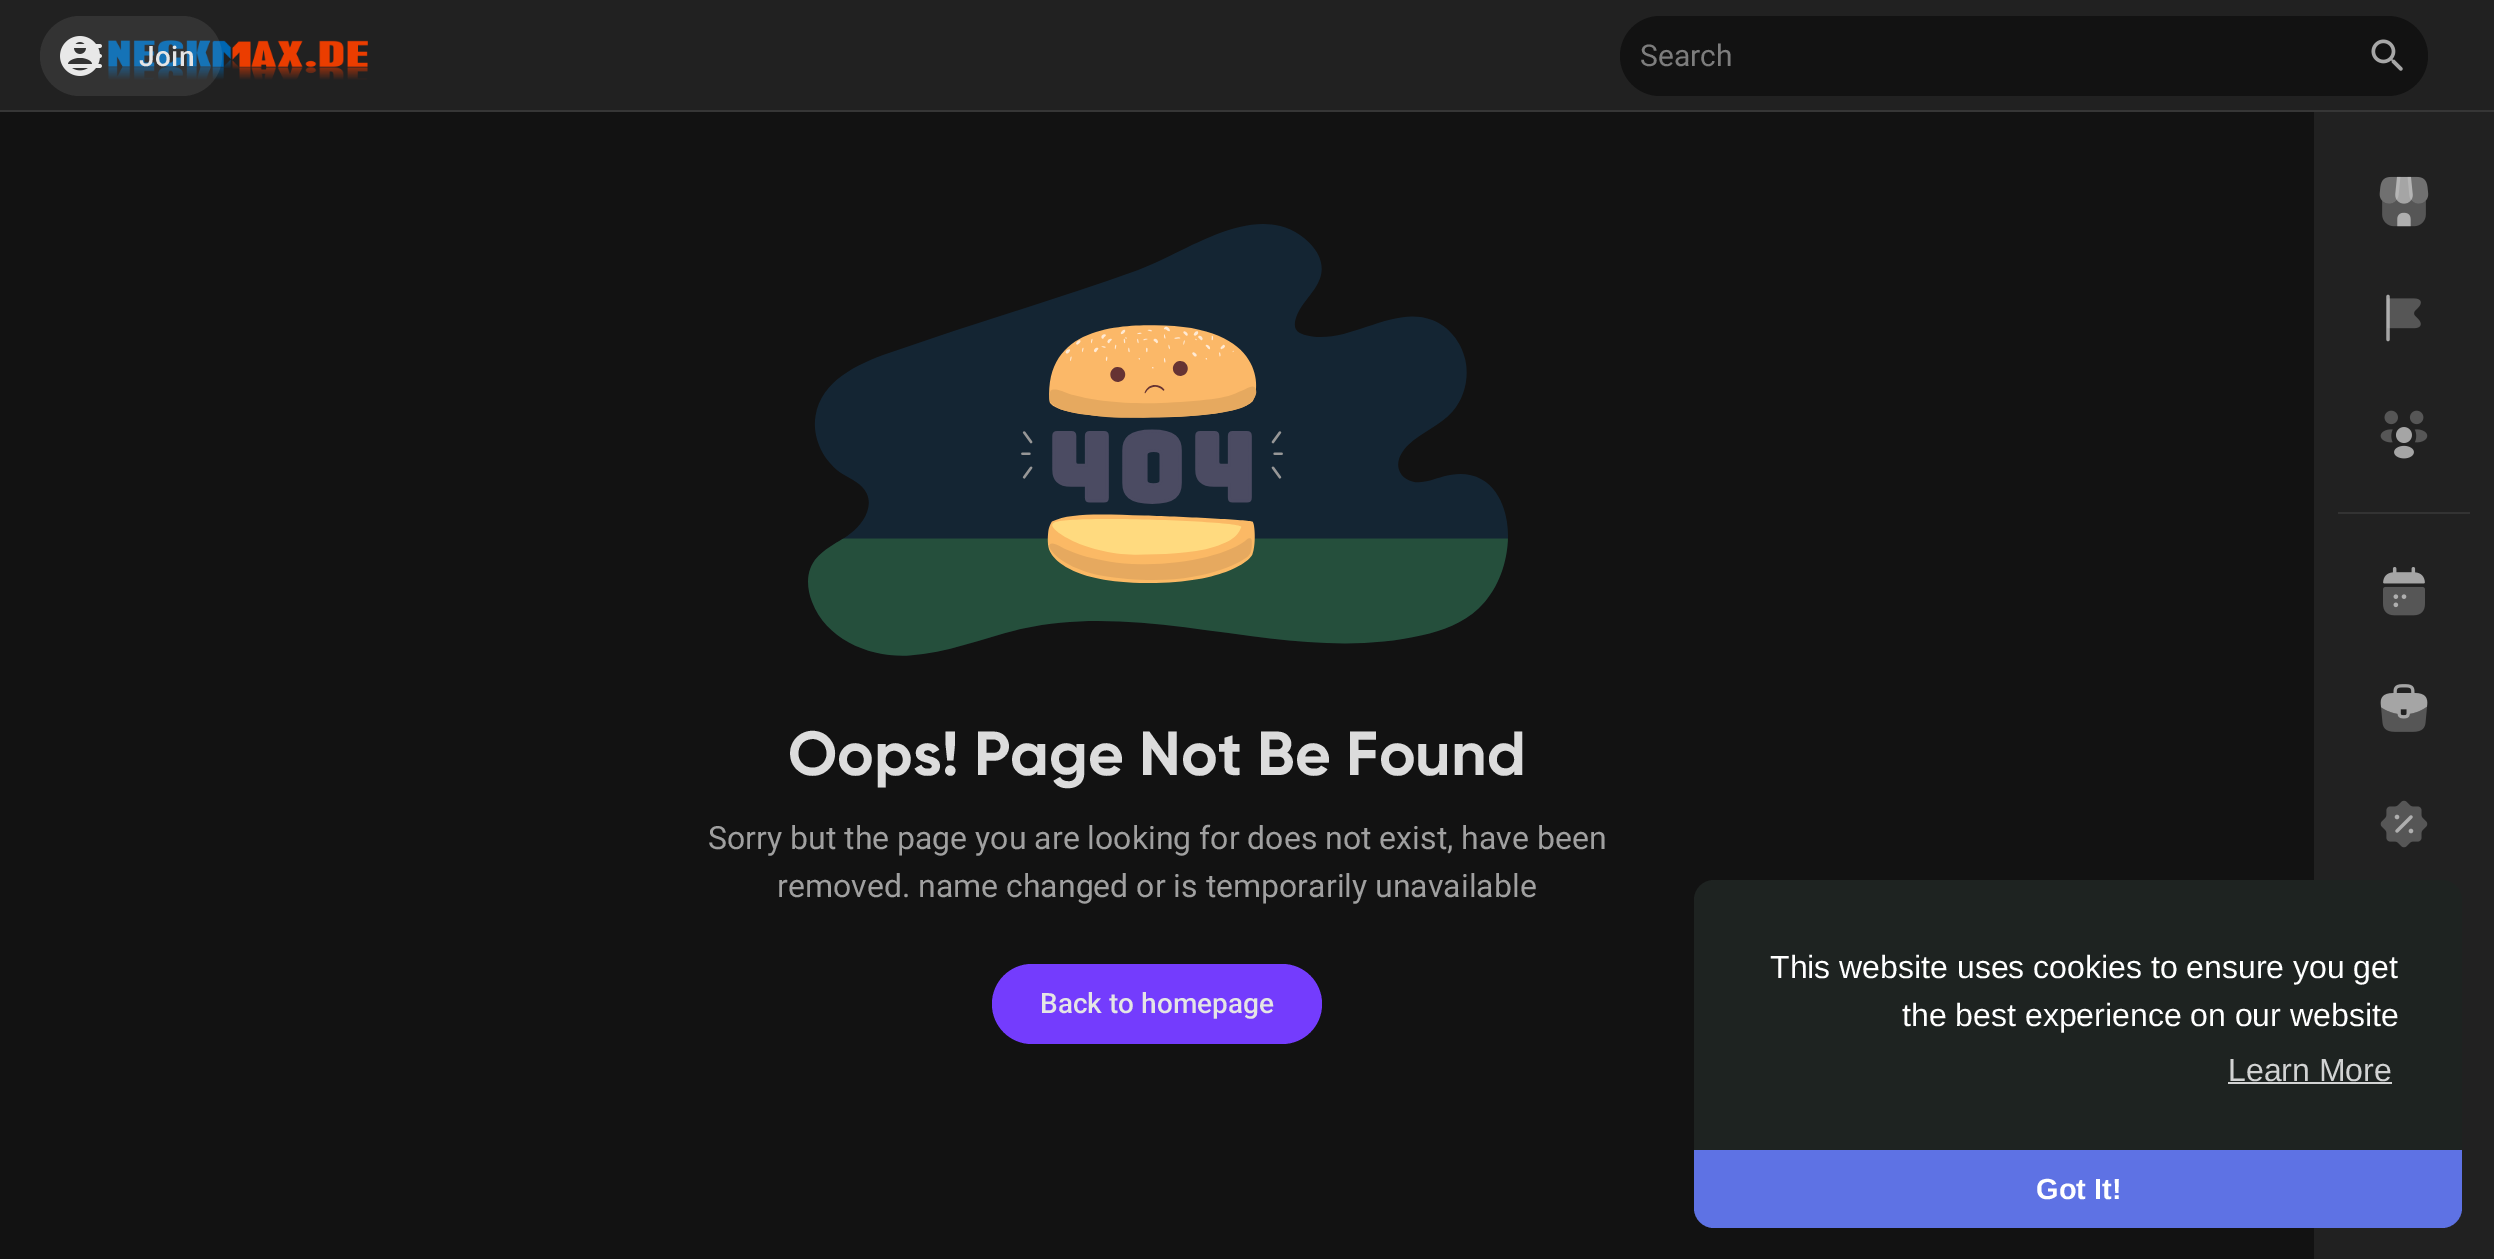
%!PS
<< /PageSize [2494 1259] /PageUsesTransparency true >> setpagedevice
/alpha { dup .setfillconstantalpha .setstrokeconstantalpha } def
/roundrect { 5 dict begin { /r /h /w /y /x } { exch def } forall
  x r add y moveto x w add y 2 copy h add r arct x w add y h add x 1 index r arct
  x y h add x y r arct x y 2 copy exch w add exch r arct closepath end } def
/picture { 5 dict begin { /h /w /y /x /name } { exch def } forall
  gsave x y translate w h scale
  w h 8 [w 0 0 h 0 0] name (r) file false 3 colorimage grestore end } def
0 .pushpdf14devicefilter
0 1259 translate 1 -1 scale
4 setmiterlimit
0.071 setgray
0 0 2494 1259 rectfill
0.129 setgray
0 0 2494 110 rectfill
(img2.rgb) 68 44 34 24 picture
(img3.rgb) 108 40 260 40 picture
0.09 alpha
0.91 setgray
40 16 182 80 40 roundrect fill
1 alpha
(img1.rgb) 60 36 40 40 picture
/Roboto-Medium [28 0 0 -28 0 0] selectfont
0.898 setgray
139 66 moveto 0.5 0 (Join) ashow
0.071 setgray
1620 16 808 80 40 roundrect fill
/Roboto-Regular [30 0 0 -30 0 0] selectfont
0.49 setgray
1640 66 moveto (Search) show
(img4.rgb) 2371 39 32 32 picture
0.212 setgray
0 110 2494 2 rectfill
(img5.rgb) 808 224 700 432 picture
/Gilroy-Bold [62 0 0 -62 0 0] selectfont
0.863 setgray
788 775 moveto (Oops! Page Not Be Found) show
/Roboto-Regular [32 0 0 -32 0 0] selectfont
0.627 setgray
708 849 moveto (Sorry but the page you are looking for does not exist, have been) show
777 897 moveto (removed. name changed or is temporarily unavailable) show
0.455 0.235 0.992 setrgbcolor
992 964 330 80 40 roundrect fill
/Roboto-Medium [28 0 0 -28 0 0] selectfont
0.898 setgray
1040 1013 moveto (Back to homepage) show
0.129 setgray
2314 112 180 1147 rectfill
(img6.rgb) 2379 176 50 51 picture
(img7.rgb) 2386 294 35 48 picture
(img8.rgb) 2380 410 48 49 picture
0.2 setgray
2338 512 132 2 rectfill
(img9.rgb) 2383 567 42 49 picture
(img10.rgb) 2380 684 48 48 picture
(img11.rgb) 2380 800 48 48 picture
0.118 0.137 0.129 setrgbcolor
1694 880 768 348 20 roundrect fill
/LiberationSans-Regular [32 0 0 -32 0 0] selectfont
1 setgray
1770 978 moveto (This website uses cookies to ensure you get) show
1902 1026 moveto (the best experience on our website) show
0.824 0.827 0.827 setrgbcolor
2228 1081 moveto (Learn More) show
2228 1082 164 2 rectfill
0.369 0.447 0.894 setrgbcolor
newpath 1694 1150 moveto 2462 1150 lineto 2462 1208 lineto 2462 1219 2453 1228 2442 1228 curveto 1714 1228 lineto 1703 1228 1694 1219 1694 1208 curveto closepath fill
/LiberationSans-Bold [29 0 0 -29 0 0] selectfont
1 setgray
2036 1199 moveto (Got It!) show
.poppdf14devicefilter showpage
